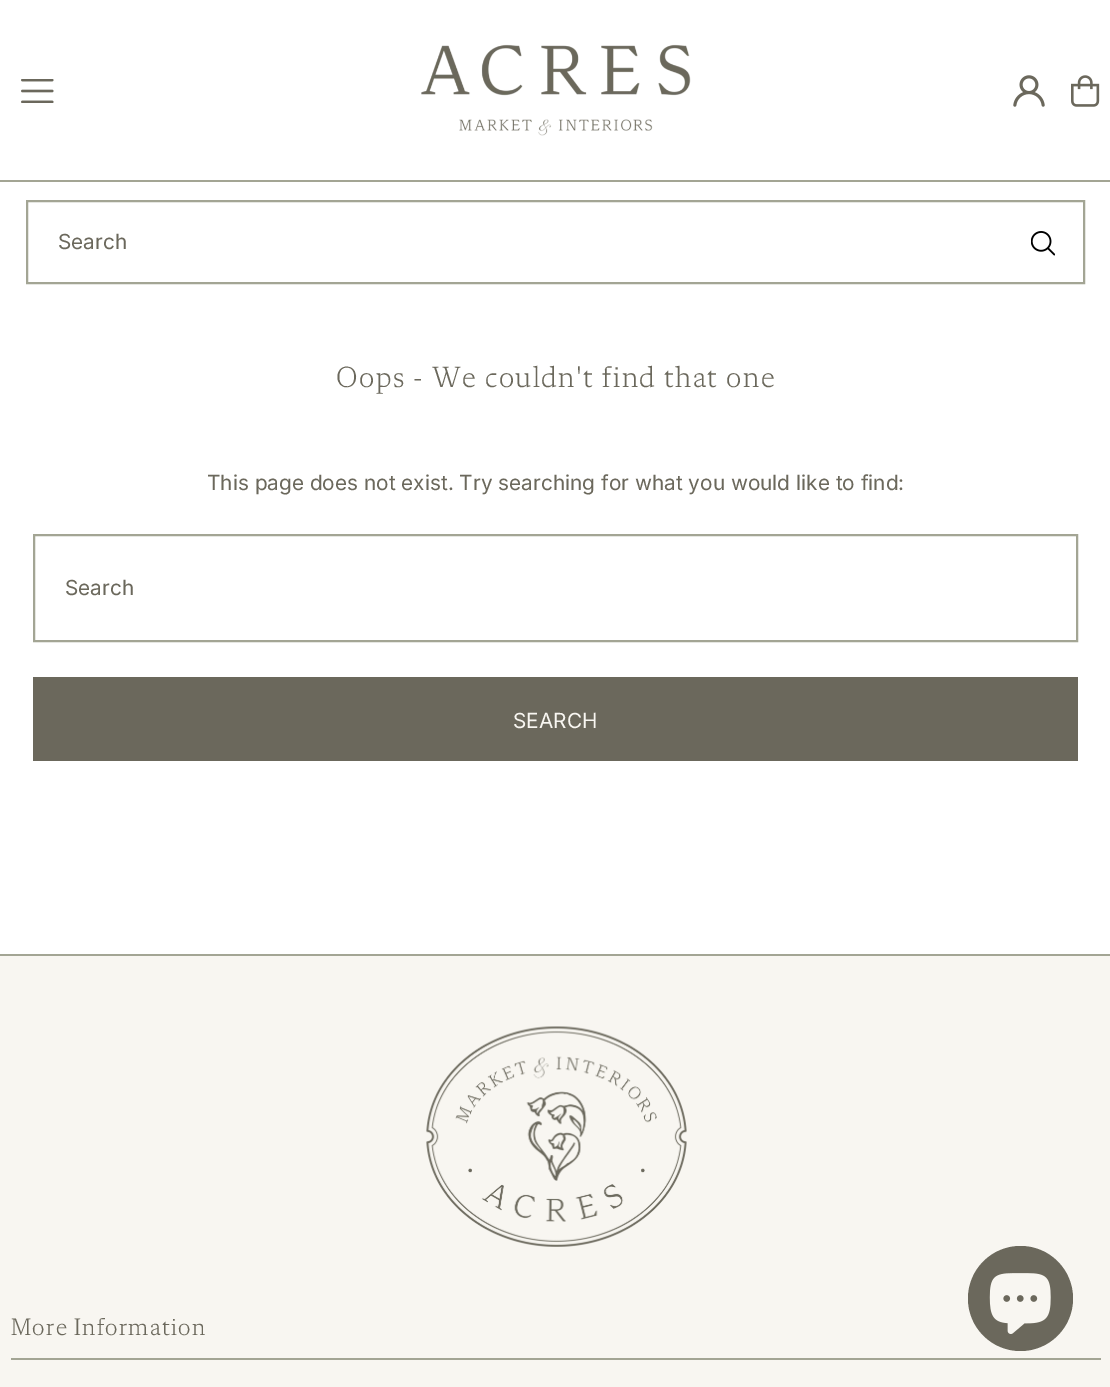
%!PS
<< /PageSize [1110 1387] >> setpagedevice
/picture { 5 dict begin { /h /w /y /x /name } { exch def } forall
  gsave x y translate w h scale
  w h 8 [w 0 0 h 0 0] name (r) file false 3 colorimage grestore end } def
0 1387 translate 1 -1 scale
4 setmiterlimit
1 setgray
0 0 1110 1387 rectfill
0.639 0.647 0.58 setrgbcolor
0 180 1110 2 rectfill
(img1.rgb) 21 79 33 24 picture
(img2.rgb) 421 44 270 92 picture
(img3.rgb) 1013 75 32 32 picture
(img4.rgb) 1071 75 29 32 picture
2 setlinewidth
27 201 1057 82 rectstroke
/Inter-Regular [20.8 0 0 -20.8 0 0] selectfont
0.42 0.408 0.361 setrgbcolor
58 249 moveto (Search) show
(img5.rgb) 1031 231 24 25 picture
/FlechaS-Light [29.75 0 0 -29.75 0 0] selectfont
336 387 moveto 1.5 0 (Oops - We couldn't find that one) ashow
/Inter-Regular [20.8 0 0 -20.8 0 0] selectfont
207 490 moveto (This page does not exist. Try searching for what you would like to find:) show
0.639 0.647 0.58 setrgbcolor
34 535 1043 106 rectstroke
0.42 0.408 0.361 setrgbcolor
65 595 moveto (Search) show
33 677 1045 84 rectfill
0.973 0.965 0.945 setrgbcolor
513 728 moveto (SEARCH) show
0 956 1110 431 rectfill
0.639 0.647 0.58 setrgbcolor
0 954 1110 2 rectfill
(img6.rgb) 426 1026 261 221 picture
11 1358 1090 2 rectfill
/FlechaS-Light [24.25 0 0 -24.25 0 0] selectfont
0.42 0.408 0.361 setrgbcolor
11 1335 moveto 1.25 0 (More Information) ashow
newpath 1020.5 1298.5 52.5 0 360 arc closepath fill
(img7.rgb) 989 1273 62 61 picture
showpage
